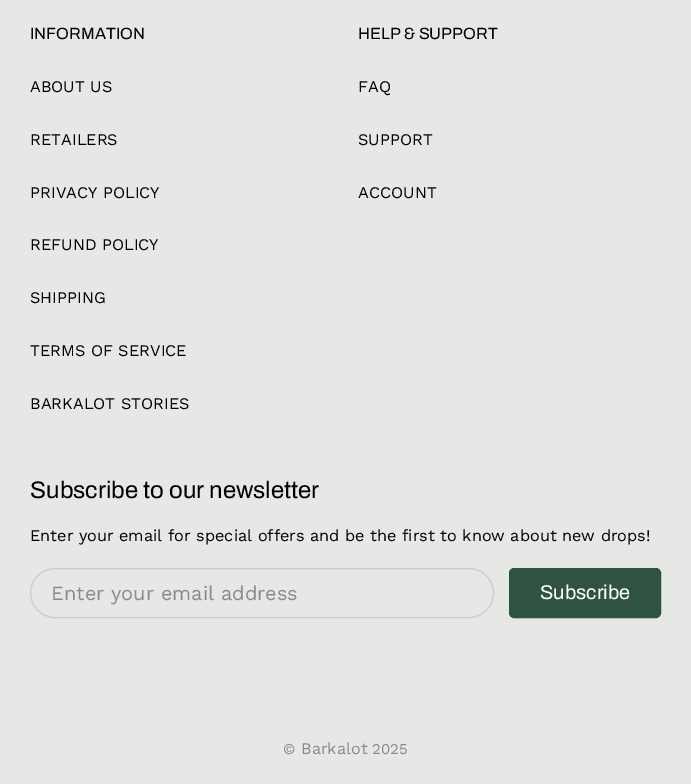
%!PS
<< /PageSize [691 784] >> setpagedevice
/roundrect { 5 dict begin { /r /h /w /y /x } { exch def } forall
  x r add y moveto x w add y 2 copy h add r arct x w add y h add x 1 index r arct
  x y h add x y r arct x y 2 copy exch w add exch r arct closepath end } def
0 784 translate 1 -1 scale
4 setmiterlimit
0.902 0.91 0.898 setrgbcolor
0 0 691 784 rectfill
/Archivo-Regular [16.25 0 0 -16.25 0 0] selectfont
0 setgray
30 39 moveto (INFORMATION) show
/WorkSans-Regular [16.25 0 0 -16.25 0 0] selectfont
30 92 moveto (ABOUT US) show
30 145 moveto (RETAILERS) show
30 198 moveto (PRIVACY POLICY) show
30 250 moveto (REFUND POLICY) show
30 303 moveto (SHIPPING) show
30 356 moveto (TERMS OF SERVICE) show
30 409 moveto (BARKALOT STORIES) show
/Archivo-Regular [16.25 0 0 -16.25 0 0] selectfont
358 39 moveto (HELP & SUPPORT) show
/WorkSans-Regular [16.25 0 0 -16.25 0 0] selectfont
358 92 moveto (FAQ) show
358 145 moveto (SUPPORT) show
358 198 moveto (ACCOUNT) show
/Archivo-Regular [24 0 0 -24 0 0] selectfont
30 498 moveto (Subscribe to our newsletter) show
/WorkSans-Regular [16.25 0 0 -16.25 0 0] selectfont
30 541 moveto (Enter your email for special offers and be the first to know about new drops!) show
0.792 0.8 0.792 setrgbcolor
30.5 568.5 463 49 24.5 roundrect stroke
/WorkSans-Regular [20 0 0 -20 0 0] selectfont
0.541 0.545 0.537 setrgbcolor
51 600 moveto (Enter your email address) show
0.188 0.322 0.255 setrgbcolor
509.5 568.5 151 49 4.5 roundrect gsave fill grestore
stroke
/Archivo-Regular [20 0 0 -20 0 0] selectfont
1 setgray
540 599 moveto (Subscribe) show
/WorkSans-Regular [15 0 0 -15 0 0] selectfont
0.541 0.545 0.537 setrgbcolor
283 754 moveto (©) show
/WorkSans-Regular [16.25 0 0 -16.25 0 0] selectfont
301 754 moveto (Barkalot) show
/WorkSans-Regular [15 0 0 -15 0 0] selectfont
372 754 moveto (2025) show
showpage
